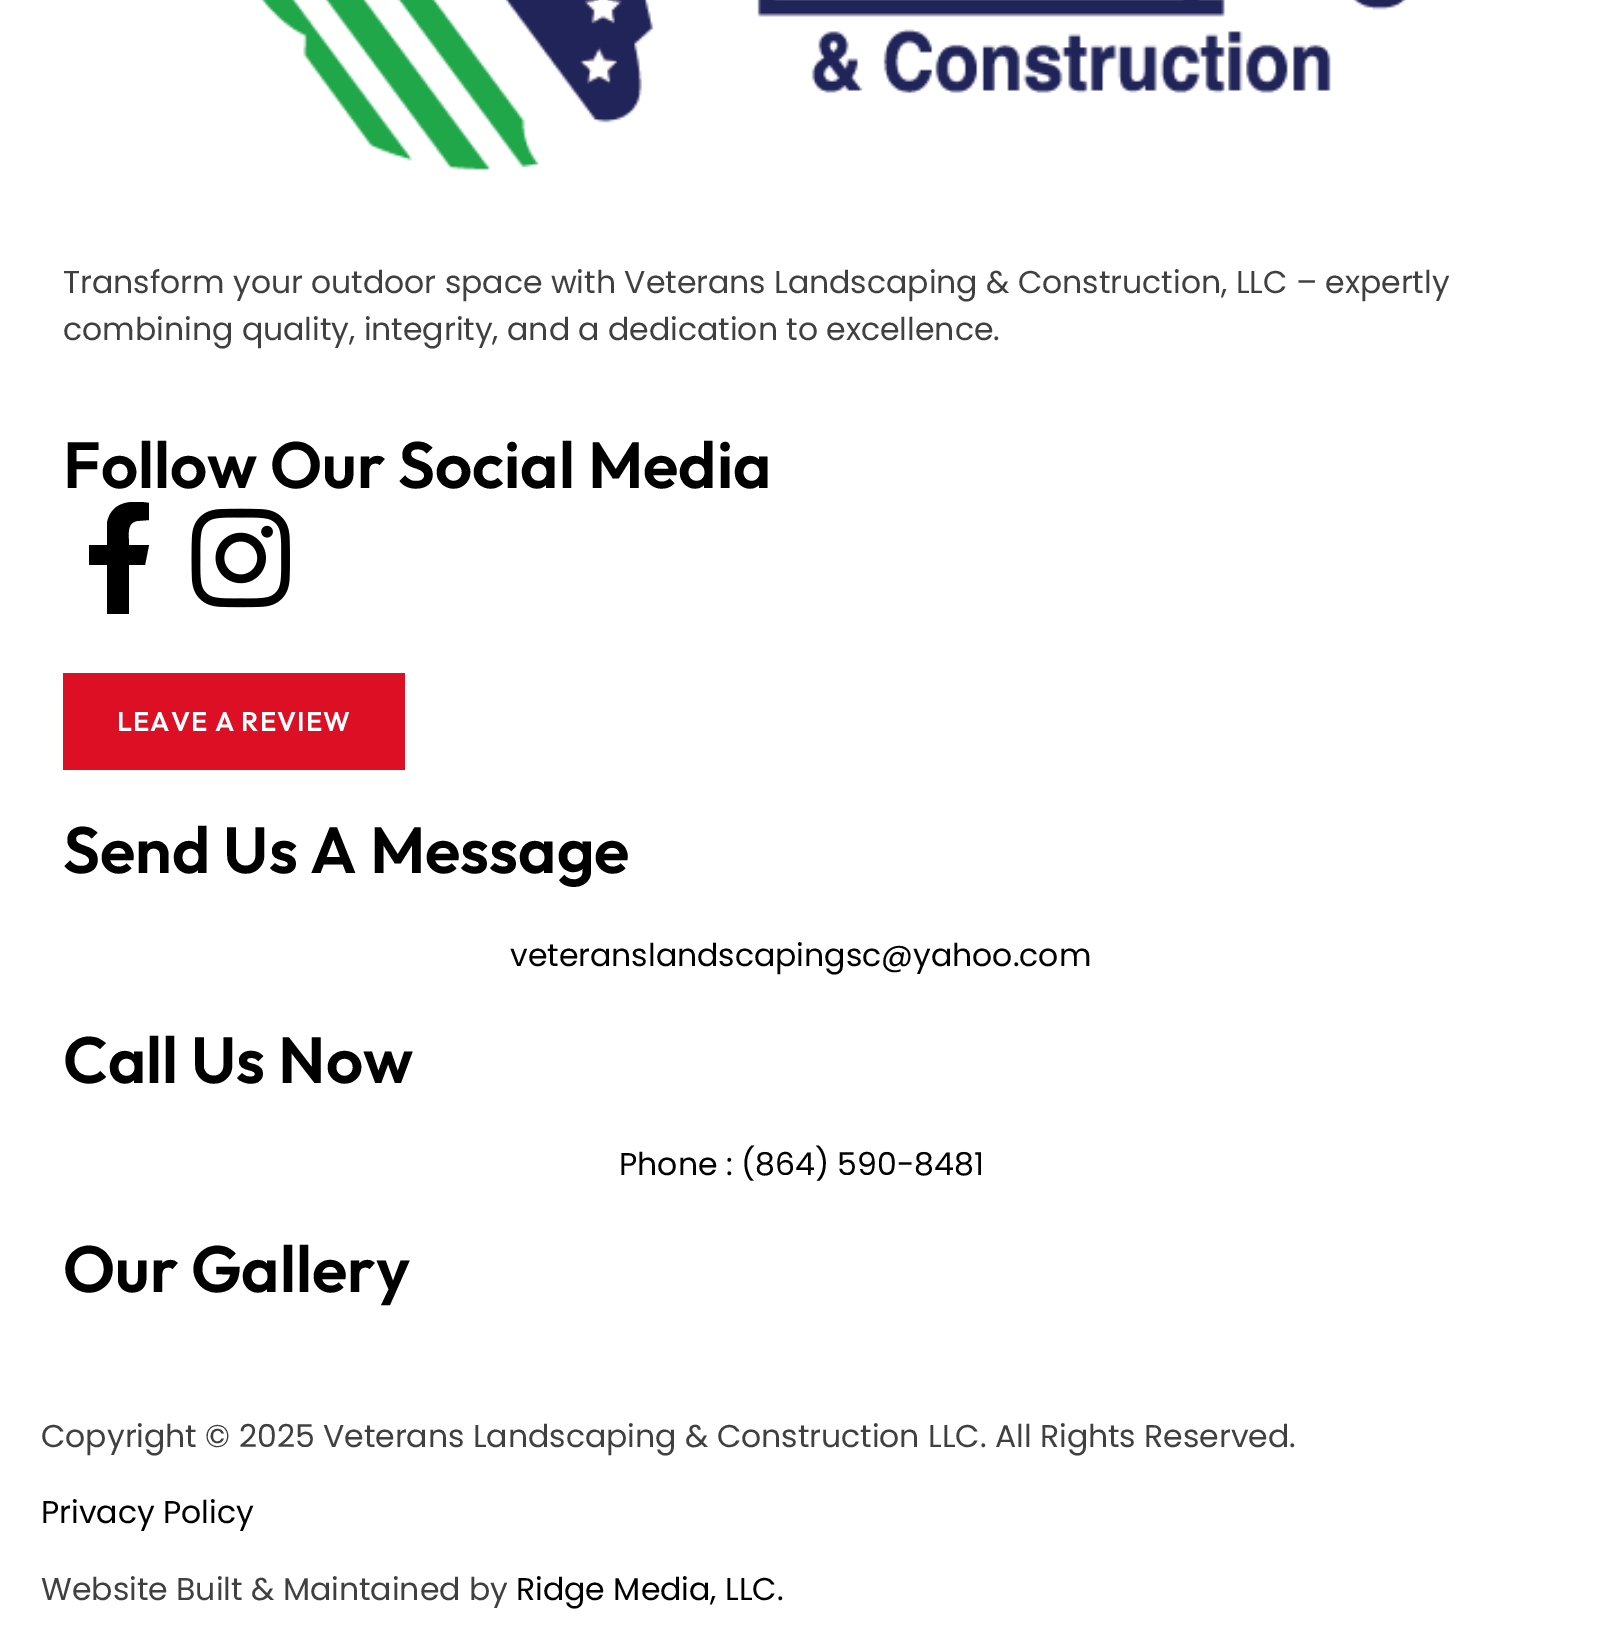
%!PS
<< /PageSize [1600 1643] >> setpagedevice
/picture { 5 dict begin { /h /w /y /x /name } { exch def } forall
  gsave x y translate w h scale
  w h 8 [w 0 0 h 0 0] name (r) file false 3 colorimage grestore end } def
0 1643 translate 1 -1 scale
4 setmiterlimit
1 setgray
0 0 1600 1643 rectfill
(img1.rgb) 260 0 1147 170 picture
/Poppins-Regular [31.5 0 0 -31.5 0 0] selectfont
0.251 setgray
63 293 moveto (Transform your outdoor space with Veterans Landscaping & Construction, LLC – expertly) show
63 340 moveto (combining quality, integrity, and a dedication to excellence.) show
/Outfit-SemiBold [65.25 0 0 -65.25 0 0] selectfont
0 setgray
63 488 moveto (Follow Our Social Media) show
gsave
63 502 113 112 rectclip
newpath 145 565 moveto 149 545 lineto 129 545 lineto 129 536 126 523 137 521 curveto 149 520 lineto 149 503 lineto 132 500 111 501 107 523 curveto 107 545 lineto 89 545 lineto 89 565 lineto 107 565 lineto 107 614 lineto 129 614 lineto 129 565 lineto closepath fill
grestore
(img2.rgb) 191 508 99 100 picture
0.867 0.059 0.141 setrgbcolor
63 673 342 97 rectfill
/Outfit-SemiBold [27 0 0 -27 0 0] selectfont
1 setgray
117 731 moveto 1.1 0 (LEAVE A REVIEW) ashow
/Outfit-SemiBold [65.25 0 0 -65.25 0 0] selectfont
0 setgray
63 873 moveto (Send Us A Message) show
/Poppins-Regular [31.5 0 0 -31.5 0 0] selectfont
510 966 moveto (veteranslandscapingsc@yahoo.com) show
/Outfit-SemiBold [65.25 0 0 -65.25 0 0] selectfont
63 1083 moveto (Call Us Now) show
/Poppins-Regular [31.5 0 0 -31.5 0 0] selectfont
619 1175 moveto (Phone : \(864\) 590-8481) show
/Outfit-SemiBold [65.25 0 0 -65.25 0 0] selectfont
63 1292 moveto (Our Gallery) show
/Poppins-Regular [31.5 0 0 -31.5 0 0] selectfont
0.251 setgray
41 1447 moveto (Copyright © 2025 Veterans Landscaping & Construction LLC. All Rights Reserved.) show
0 setgray
41 1523 moveto (Privacy Policy) show
0.251 setgray
41 1600 moveto (Website Built & Maintained by) show
0 setgray
516 1600 moveto (Ridge Media, LLC.) show
showpage
